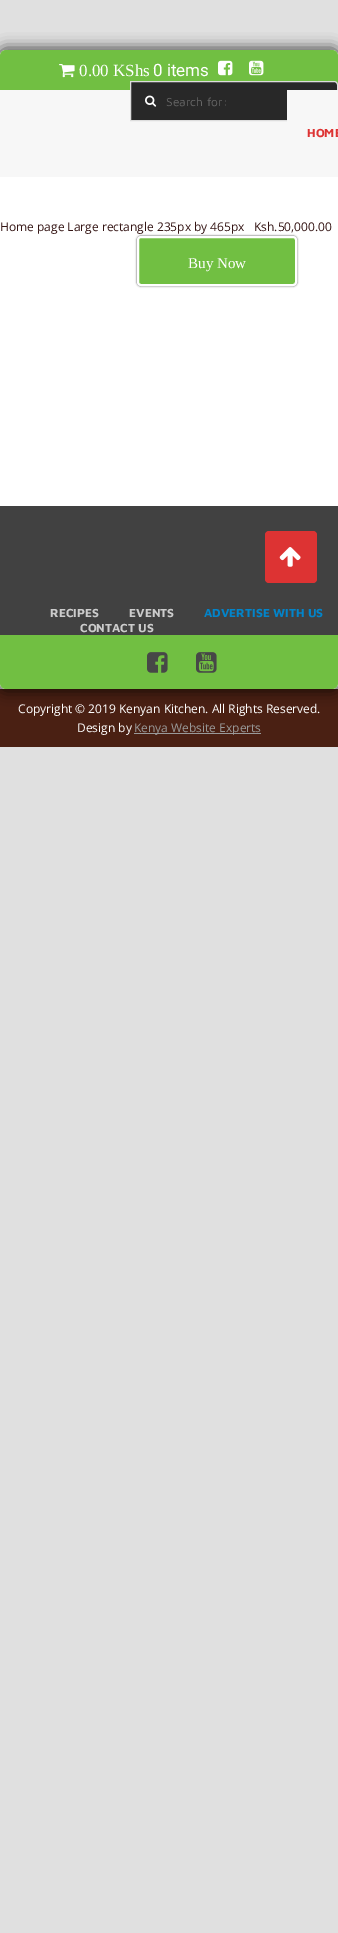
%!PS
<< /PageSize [338 1933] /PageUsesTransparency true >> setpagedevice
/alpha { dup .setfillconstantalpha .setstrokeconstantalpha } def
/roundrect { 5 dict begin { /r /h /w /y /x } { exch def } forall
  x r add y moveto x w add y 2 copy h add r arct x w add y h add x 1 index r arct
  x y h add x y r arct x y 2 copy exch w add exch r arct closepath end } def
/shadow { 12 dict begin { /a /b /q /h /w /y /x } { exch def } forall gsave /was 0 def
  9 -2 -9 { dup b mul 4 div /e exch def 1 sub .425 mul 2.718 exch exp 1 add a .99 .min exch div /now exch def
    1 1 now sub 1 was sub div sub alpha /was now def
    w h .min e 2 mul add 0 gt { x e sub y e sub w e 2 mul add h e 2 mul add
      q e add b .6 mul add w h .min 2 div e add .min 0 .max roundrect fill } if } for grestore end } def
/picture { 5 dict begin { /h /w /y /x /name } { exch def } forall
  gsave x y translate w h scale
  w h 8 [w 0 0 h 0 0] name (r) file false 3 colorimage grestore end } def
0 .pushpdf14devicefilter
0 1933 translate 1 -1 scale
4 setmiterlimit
0.878 setgray
0 0 338 1933 rectfill
0.29 0.125 0.075 setrgbcolor
0 689 338 58 rectfill
0 setgray
-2 48 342 643 8 7 0.7 shadow
1 setgray
0 50 338 639 6 roundrect fill
0.443 0.749 0.259 setrgbcolor
newpath 6 50 moveto 332 50 lineto 335.5 50 338 52.5 338 56 curveto 338 90 lineto 0 90 lineto 0 56 lineto 0 52.5 2.5 50 6 50 curveto closepath fill
(img1.rgb) 59 64 16 14 picture
/LiberationSerif-Regular [17 0 0 -17 0 0] selectfont
1 setgray
79 76 moveto (0.00 KShs) show
/Roboto-Regular [17 0 0 -17 0 0] selectfont
153 76 moveto (0 items) show
(img2.rgb) 218 60 15 16 picture
(img3.rgb) 249 60 15 16 picture
0.969 setgray
0 90 287 87 rectfill
0.157 setgray
newpath 130.5 81.5 moveto 334 81.5 lineto 336 81.5 337.5 83 337.5 85 curveto 337.5 120.5 lineto 130.5 120.5 lineto closepath gsave fill grestore
0.867 setgray
stroke
(img4.rgb) 145 95 12 12 picture
/MavenPro-Regular [12 0 0 -12 0 0] selectfont
0.4 setgray
166 106 moveto (Search for:) show
0.969 setgray
287 90 51 87 rectfill
/MavenPro-Bold [12 0 0 -12 0 0] selectfont
0.867 0.2 0.2 setrgbcolor
307 137 moveto (HOME) show
/OpenSans-Regular [12 0 0 -12 0 0] selectfont
0.204 0.082 0.078 setrgbcolor
0 231 moveto (Home page Large rectangle 235px by 465px) show
254 231 moveto (Ksh.50,000.00) show
0.2 setgray
137 236 160 50 4 1 1 shadow
0.443 0.749 0.259 setrgbcolor
138 237 158 48 3 roundrect gsave fill grestore
1 setgray
2 setlinewidth
stroke
/LiberationSerif-Regular [15 0 0 -15 0 0] selectfont
188 268 moveto (Buy Now) show
0.255 setgray
0 506 338 129 rectfill
0.867 0.2 0.2 setrgbcolor
265 531 52 52 4 roundrect fill
(img5.rgb) 279 547 22 20 picture
/MavenPro-Bold [12 0 0 -12 0 0] selectfont
0.8 setgray
50 617 moveto (RECIPES) show
129 617 moveto (EVENTS) show
0.008 0.518 0.792 setrgbcolor
204 617 moveto (ADVERTISE WITH US) show
0.8 setgray
80 632 moveto (CONTACT US) show
0.443 0.749 0.259 setrgbcolor
newpath 0 635 moveto 338 635 lineto 338 683 lineto 338 686.5 335.5 689 332 689 curveto 6 689 lineto 2.5 689 0 686.5 0 683 curveto closepath fill
(img6.rgb) 147 652 21 21 picture
(img7.rgb) 196 652 21 21 picture
/OpenSans-Regular [12 0 0 -12 0 0] selectfont
1 setgray
18 713 moveto (Copyright © 2019 Kenyan Kitchen. All Rights Reserved.) show
77 732 moveto (Design by) show
0.6 setgray
134 733 127 1 rectfill
134 732 moveto (Kenya Website Experts) show
.poppdf14devicefilter showpage
